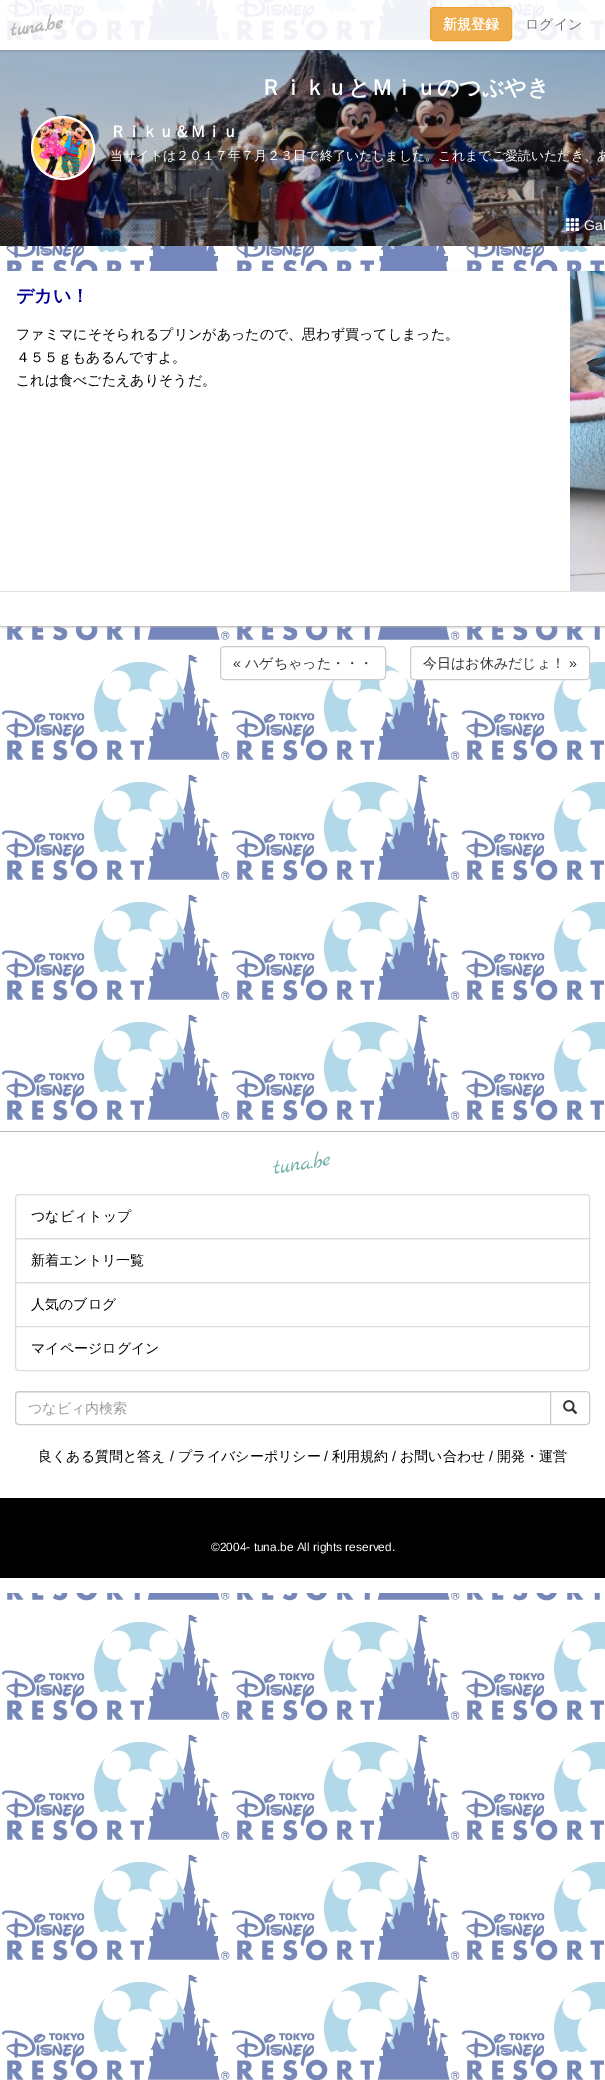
%!PS
<< /PageSize [605 2080] /PageUsesTransparency true >> setpagedevice
/alpha { dup .setfillconstantalpha .setstrokeconstantalpha } def
/roundrect { 5 dict begin { /r /h /w /y /x } { exch def } forall
  x r add y moveto x w add y 2 copy h add r arct x w add y h add x 1 index r arct
  x y h add x y r arct x y 2 copy exch w add exch r arct closepath end } def
/shadow { 12 dict begin { /a /b /q /h /w /y /x } { exch def } forall gsave /was 0 def
  9 -2 -9 { dup b mul 4 div /e exch def 1 sub .425 mul 2.718 exch exp 1 add a .99 .min exch div /now exch def
    1 1 now sub 1 was sub div sub alpha /was now def
    w h .min e 2 mul add 0 gt { x e sub y e sub w e 2 mul add h e 2 mul add
      q e add b .6 mul add w h .min 2 div e add .min 0 .max roundrect fill } if } for grestore end } def
/picture { 5 dict begin { /h /w /y /x /name } { exch def } forall
  gsave x y translate w h scale
  w h 8 [w 0 0 h 0 0] name (r) file false 3 colorimage grestore end } def
0 .pushpdf14devicefilter
0 2080 translate 1 -1 scale
4 setmiterlimit
1 setgray
0 0 605 2080 rectfill
(img1.rgb) 0 0 605 2080 picture
(img2.rgb) 0 50 605 196 picture
gsave
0 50 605 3 rectclip
0 setgray
0 2 605 50 0 1 0.1 shadow
grestore
0.9 alpha
4 0 601 41 rectfill
/MarckScript-Bold [20 0 0 -20 0 0] selectfont
1 alpha
0.714 setgray
gsave 11 36 translate -9 rotate 0 0 moveto (tuna.be) show grestore
0.941 0.678 0.306 setrgbcolor
430.5 7.5 81 33 3.5 roundrect gsave fill grestore
0.933 0.635 0.212 setrgbcolor
stroke
/WenQuanYiZenHei-Bold [14 0 0 -14 0 0] selectfont
1 setgray
443 29 moveto (新規登録) show
/WenQuanYiZenHei-Medium [14 0 0 -14 0 0] selectfont
0.447 setgray
525 29 moveto (ログイン) show
/WenQuanYiZenHei-Bold [22 0 0 -22 0 0] selectfont
1 setgray
260 95 moveto (ＲｉｋｕとＭｉｕのつぶやき) show
(img3.rgb) 33 118 60 60 picture
2 setlinewidth
newpath 63 148 31 0 360 arc closepath stroke
/WenQuanYiZenHei-Bold [16 0 0 -16 0 0] selectfont
110 137 moveto (Ｒｉｋｕ＆Ｍｉｕ) show
/WenQuanYiZenHei-Medium [13 0 0 -13 0 0] selectfont
110 160 moveto (当サイトは２０１７年７月２３日で終了いたしました。これまでご愛読いただき、あ) show
(img4.rgb) 566 218 13 13 picture
/LiberationSans-Regular [14 0 0 -14 0 0] selectfont
584 230 moveto (Gal) show
0.667 setgray
0 272 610 355 2 1 1 shadow
1 setgray
0 271 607 355 2 roundrect fill
/WenQuanYiZenHei-Bold [18 0 0 -18 0 0] selectfont
0 0 0.6 setrgbcolor
16 302 moveto (デカい！) show
(img5.rgb) 570 271 35 320 picture
/WenQuanYiZenHei-Medium [14 0 0 -14 0 0] selectfont
0 setgray
16 339 moveto (ファミマにそそられるプリンがあったので、思わず買ってしまった。) show
16 362 moveto (４５５ｇもあるんですよ。) show
16 385 moveto (これは食べごたえありそうだ。) show
0.878 setgray
0 591 605 1 rectfill
1 setgray
220.5 646.5 165 33 3.5 roundrect gsave fill grestore
0.8 setgray
1 setlinewidth
stroke
/LiberationSans-Regular [14 0 0 -14 0 0] selectfont
0.2 setgray
233 668 moveto («) show
/WenQuanYiZenHei-Medium [14 0 0 -14 0 0] selectfont
245 668 moveto (ハゲちゃった・・・) show
1 setgray
410.5 646.5 179 33 3.5 roundrect gsave fill grestore
0.8 setgray
stroke
0.2 setgray
423 668 moveto (今日はお休みだじょ！) show
/LiberationSans-Regular [14 0 0 -14 0 0] selectfont
569 668 moveto (») show
1 setgray
1 1134 604 459 rectfill
0.714 setgray
0 1131 605 1 rectfill
/MarckScript-Regular [22 0 0 -22 0 0] selectfont
0.459 0.694 0.663 setrgbcolor
gsave 274 1174 translate -9 rotate 0 0 moveto (tuna.be) show grestore
0.867 setgray
newpath 19 1194.5 moveto 586 1194.5 lineto 588 1194.5 589.5 1196 589.5 1198 curveto 589.5 1238.5 lineto 15.5 1238.5 lineto 15.5 1198 lineto 15.5 1196 17 1194.5 19 1194.5 curveto closepath stroke
/WenQuanYiZenHei-Medium [14 0 0 -14 0 0] selectfont
0 setgray
31 1221 moveto (つなビィトップ) show
0.867 setgray
15.5 1238.5 574 44 rectstroke
0 setgray
31 1265 moveto (新着エントリ一覧) show
0.867 setgray
15.5 1282.5 574 44 rectstroke
0 setgray
31 1309 moveto (人気のブログ) show
1 setgray
newpath 15.5 1326.5 moveto 589.5 1326.5 lineto 589.5 1367 lineto 589.5 1369 588 1370.5 586 1370.5 curveto 19 1370.5 lineto 17 1370.5 15.5 1369 15.5 1367 curveto closepath gsave fill grestore
0.867 setgray
stroke
0 setgray
31 1353 moveto (マイページログイン) show
0.925 setgray
newpath 19 1393 moveto 550 1393 lineto 550 1392 lineto 19 1392 lineto 17 1392 16 1394 16 1396 curveto 16 1394 17 1393 19 1393 curveto closepath fill
0.8 setgray
newpath 19 1391.5 moveto 550.5 1391.5 lineto 550.5 1424.5 lineto 19 1424.5 lineto 17 1424.5 15.5 1423 15.5 1421 curveto 15.5 1395 lineto 15.5 1393 17 1391.5 19 1391.5 curveto closepath stroke
0.6 setgray
28 1413 moveto (つなビィ内検索) show
1 setgray
newpath 550.5 1391.5 moveto 586 1391.5 lineto 588 1391.5 589.5 1393 589.5 1395 curveto 589.5 1421 lineto 589.5 1423 588 1424.5 586 1424.5 curveto 550.5 1424.5 lineto closepath gsave fill grestore
0.8 setgray
stroke
(img6.rgb) 563 1400 15 14 picture
0 setgray
38 1461 moveto (良くある質問と答え) show
/LiberationSans-Regular [14 0 0 -14 0 0] selectfont
170 1461 moveto (/) show
/WenQuanYiZenHei-Medium [14 0 0 -14 0 0] selectfont
178 1461 moveto (プライバシーポリシー) show
/LiberationSans-Regular [14 0 0 -14 0 0] selectfont
324 1461 moveto (/) show
/WenQuanYiZenHei-Medium [14 0 0 -14 0 0] selectfont
332 1461 moveto (利用規約) show
/LiberationSans-Regular [14 0 0 -14 0 0] selectfont
392 1461 moveto (/) show
/WenQuanYiZenHei-Medium [14 0 0 -14 0 0] selectfont
400 1461 moveto (お問い合わせ) show
/LiberationSans-Regular [14 0 0 -14 0 0] selectfont
489 1461 moveto (/) show
/WenQuanYiZenHei-Medium [14 0 0 -14 0 0] selectfont
497 1461 moveto (開発・運営) show
0 1498 605 80 rectfill
/LiberationSans-Regular [11.9 0 0 -11.9 0 0] selectfont
1 setgray
211 1551 moveto (©2004- tuna.be All rights reserved.) show
.poppdf14devicefilter showpage
